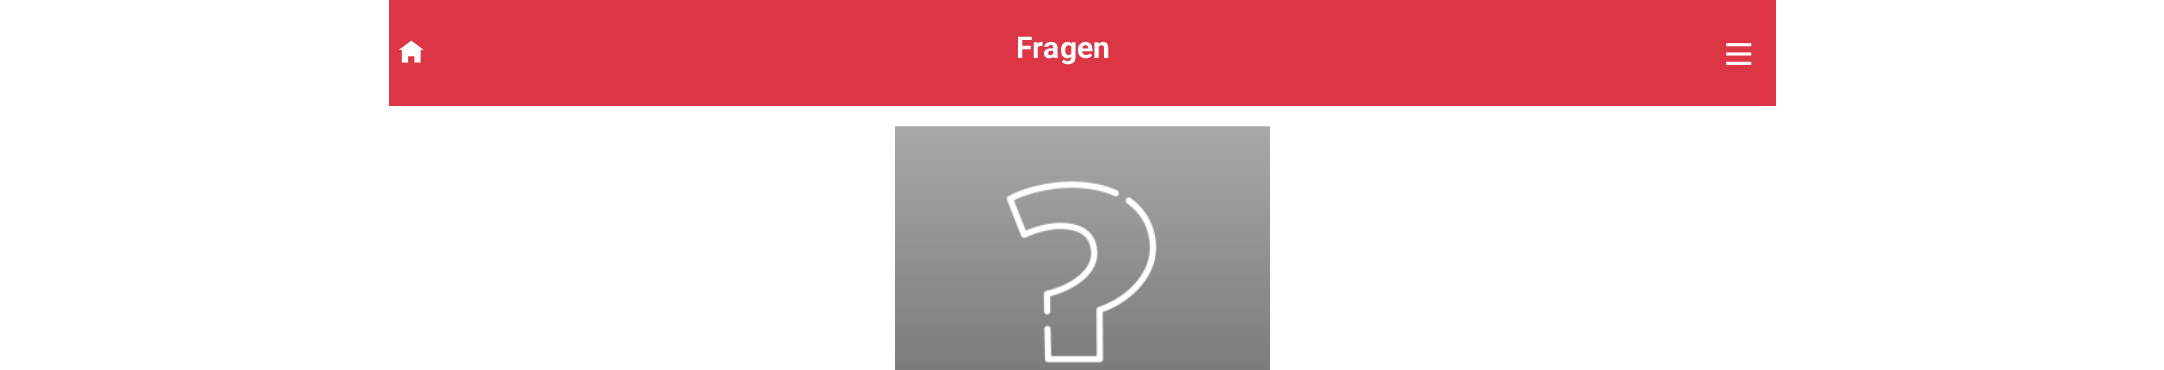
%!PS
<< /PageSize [2164 370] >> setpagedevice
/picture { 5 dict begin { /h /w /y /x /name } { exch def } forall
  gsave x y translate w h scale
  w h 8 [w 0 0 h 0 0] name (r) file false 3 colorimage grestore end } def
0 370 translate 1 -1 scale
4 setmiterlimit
1 setgray
0 0 2164 370 rectfill
0.863 0.208 0.271 setrgbcolor
389 0 1387 106 rectfill
(img1.rgb) 398 40 26 23 picture
/Roboto-Bold [30 0 0 -30 0 0] selectfont
1 setgray
1016 58 moveto (Fragen) show
(img2.rgb) 1726 43 26 22 picture
(img3.rgb) 895 126 375 244 picture
showpage
